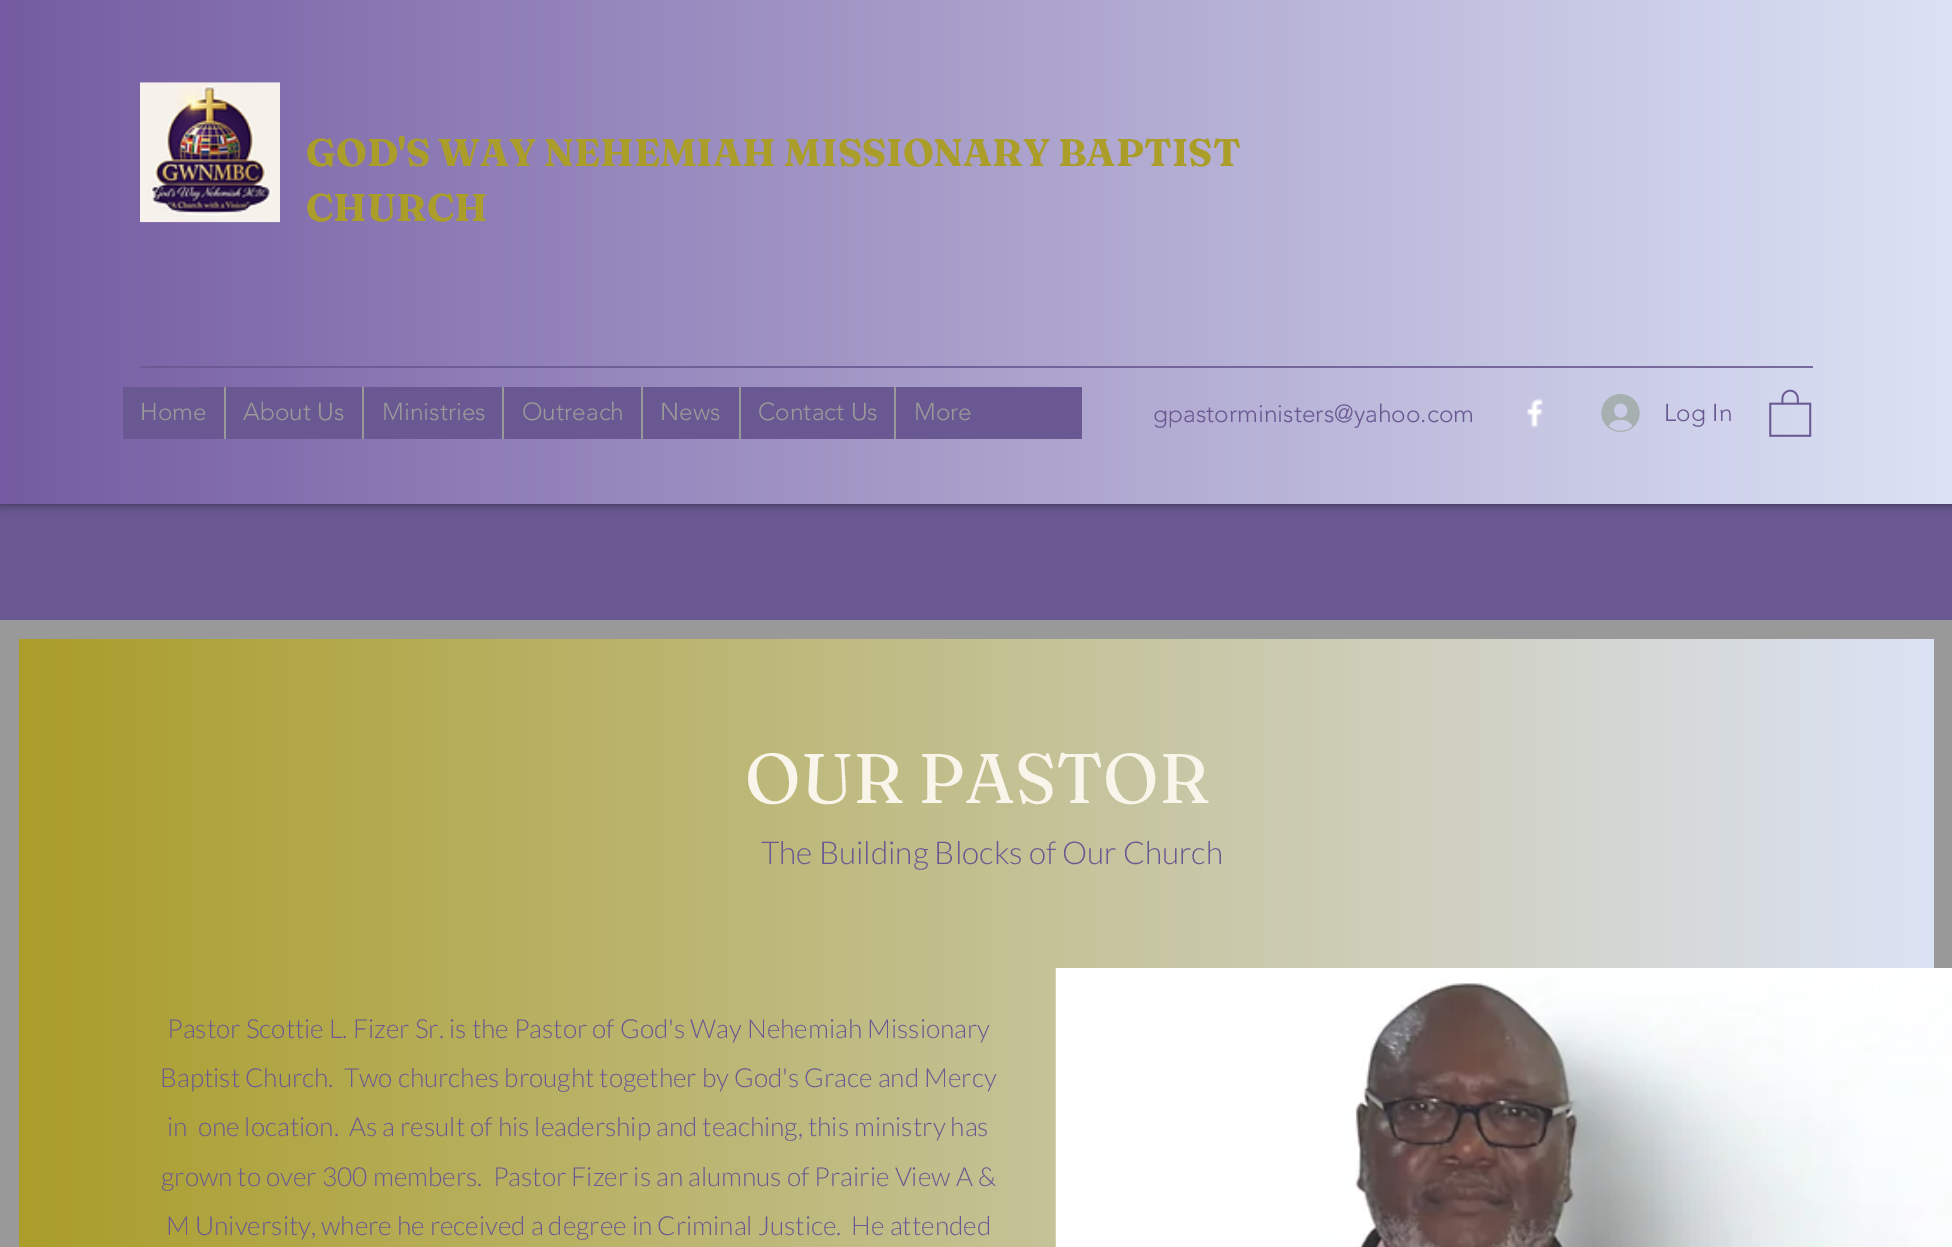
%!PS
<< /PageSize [1952 1247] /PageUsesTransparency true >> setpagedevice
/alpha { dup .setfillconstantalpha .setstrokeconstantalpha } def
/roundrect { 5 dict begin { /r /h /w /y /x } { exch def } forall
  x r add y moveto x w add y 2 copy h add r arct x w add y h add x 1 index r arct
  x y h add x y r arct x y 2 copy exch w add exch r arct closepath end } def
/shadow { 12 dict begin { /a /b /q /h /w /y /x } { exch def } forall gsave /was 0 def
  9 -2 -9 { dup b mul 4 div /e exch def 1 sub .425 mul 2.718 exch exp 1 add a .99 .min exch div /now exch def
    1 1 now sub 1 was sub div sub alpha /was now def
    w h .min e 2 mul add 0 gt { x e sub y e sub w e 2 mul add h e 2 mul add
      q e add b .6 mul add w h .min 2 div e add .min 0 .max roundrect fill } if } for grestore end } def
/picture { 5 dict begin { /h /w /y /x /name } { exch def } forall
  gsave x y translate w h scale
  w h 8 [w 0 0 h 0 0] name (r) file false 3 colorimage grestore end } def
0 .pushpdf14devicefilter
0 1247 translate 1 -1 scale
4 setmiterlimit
0.412 0.345 0.569 setrgbcolor
0 0 1952 1247 rectfill
0 setgray
0 0 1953 504 0 4.5 0.5 shadow
gsave newpath 0 0 moveto 1952 0 lineto 1952 504 lineto 0 504 lineto closepath clip newpath
<< /ShadingType 2 /ColorSpace /DeviceRGB /Coords [0 252 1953 252] /Extend [true true] /Function << /FunctionType 2 /Domain [0 1] /C0 [0.459 0.361 0.635] /C1 [0.863 0.89 0.961] /N 1 >> >> shfill grestore
gsave newpath 140 366 moveto 1813 366 lineto 1813 368 lineto 140 368 lineto closepath clip newpath
<< /ShadingType 2 /ColorSpace /DeviceRGB /Coords [0 252 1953 252] /Extend [true true] /Function << /FunctionType 2 /Domain [0 1] /C0 [0.42 0.349 0.58] /C1 [0.478 0.427 0.627] /N 1 >> >> shfill grestore
(img1.rgb) 140 82 140 141 picture
/Fraunces-Bold [38.5 0 0 -38.5 0 0] selectfont
0.667 0.616 0.165 setrgbcolor
306 166 moveto (GOD'S WAY NEHEMIAH MISSIONARY BAPTIST) show
306 221 moveto (CHURCH) show
0.412 0.345 0.569 setrgbcolor
123 387 959 52 rectfill
/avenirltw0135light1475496-Light [24.5 0 0 -24.5 0 0] selectfont
0.6 setgray
140 420 moveto (Home) show
224 387 2 52 rectfill
243 420 moveto (About Us) show
362 387 2 52 rectfill
382 420 moveto (Ministries) show
502 387 2 52 rectfill
522 420 moveto (Outreach) show
641 387 2 52 rectfill
660 420 moveto (News) show
739 387 2 52 rectfill
758 420 moveto (Contact Us) show
894 387 2 52 rectfill
914 420 moveto (More) show
0.412 0.345 0.569 setrgbcolor
1153 422 moveto (gpastorministers@yahoo.com) show
(img2.rgb) 1527 398 16 30 picture
(img3.rgb) 1601 394 39 38 picture
1664 421 moveto (Log In) show
(img4.rgb) 1769 389 43 48 picture
0.6 setgray
19 setlinewidth
9.5 629.5 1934 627 rectstroke
gsave newpath 19 639 moveto 1934 639 lineto 1934 1247 lineto 19 1247 lineto closepath clip newpath
<< /ShadingType 2 /ColorSpace /DeviceRGB /Coords [19 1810 1934 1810] /Extend [true true] /Function << /FunctionType 2 /Domain [0 1] /C0 [0.667 0.616 0.165] /C1 [0.863 0.89 0.961] /N 1 >> >> shfill grestore
/Fraunces-Regular [70 0 0 -70 0 0] selectfont
0.98 0.961 0.922 setrgbcolor
745 803 moveto (OUR PASTOR) show
/Lato-Light [31.5 0 0 -31.5 0 0] selectfont
0.412 0.345 0.569 setrgbcolor
761 864 moveto (The Building Blocks of Our Church) show
/Lato-Light [26.25 0 0 -26.25 0 0] selectfont
167 1038 moveto (Pastor Scottie L. Fizer Sr. is the Pastor of God's Way Nehemiah Missionary) show
160 1087 moveto (Baptist Church.  Two churches brought together by God's Grace and Mercy) show
167 1136 moveto (in  one location.  As a result of his leadership and teaching, this ministry has) show
161 1186 moveto (grown to over 300 members.  Pastor Fizer is an alumnus of Prairie View A &) show
166 1235 moveto (M University, where he received a degree in Criminal Justice.  He attended) show
(img5.rgb) 1055 968 897 279 picture
.poppdf14devicefilter showpage
